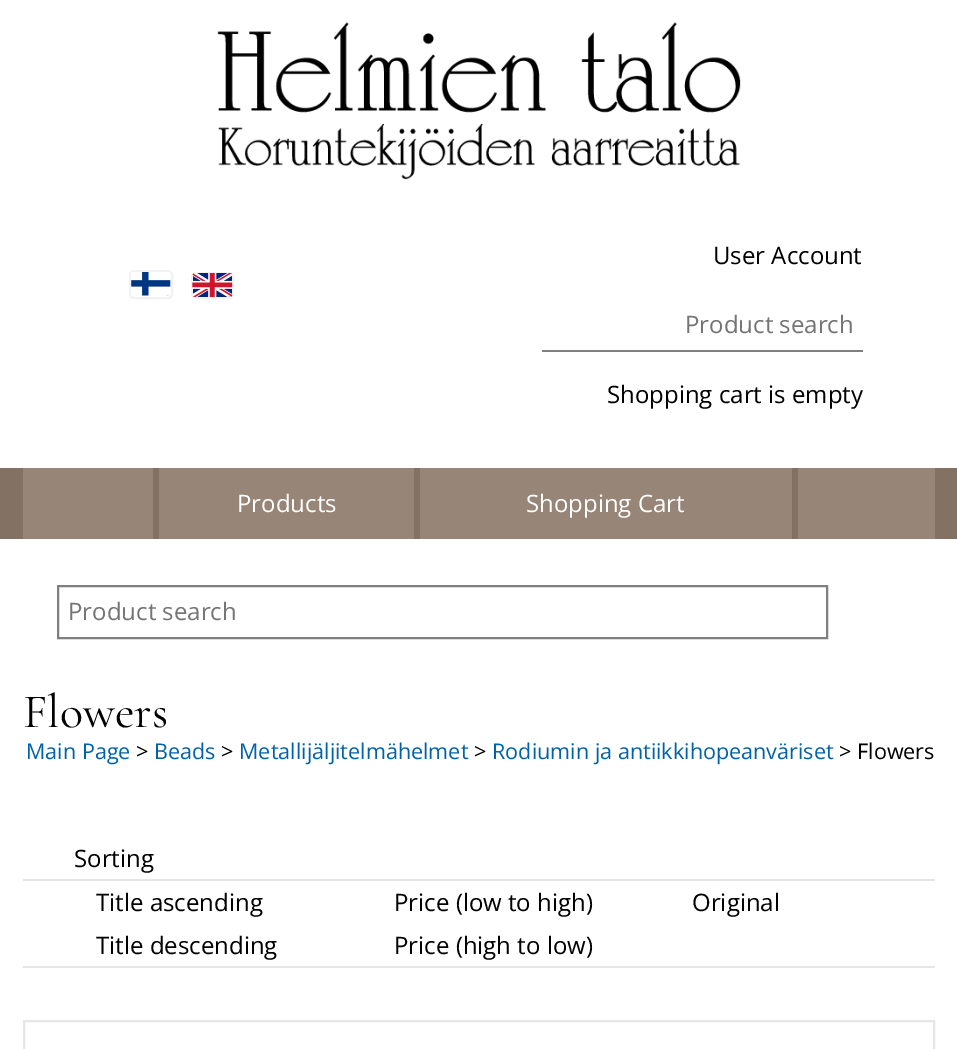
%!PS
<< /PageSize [957 1049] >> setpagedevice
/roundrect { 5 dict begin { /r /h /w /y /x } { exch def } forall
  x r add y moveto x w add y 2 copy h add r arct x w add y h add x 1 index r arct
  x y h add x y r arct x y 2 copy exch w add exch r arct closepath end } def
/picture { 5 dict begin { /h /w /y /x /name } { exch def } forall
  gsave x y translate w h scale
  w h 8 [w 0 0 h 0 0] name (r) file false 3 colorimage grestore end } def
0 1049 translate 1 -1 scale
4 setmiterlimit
1 setgray
0 0 957 1049 rectfill
(img1.rgb) 217 22 524 158 picture
/OpenSans-Regular [24 0 0 -24 0 0] selectfont
0 setgray
713 264 moveto (User Account) show
0.949 setgray
2 setlinewidth
130 271 42 27 4 roundrect stroke
(img2.rgb) 131 272 40 24 picture
192 273 41 25 4 roundrect stroke
(img3.rgb) 192 273 41 24 picture
0.502 setgray
542 350 321 2 rectfill
0.459 setgray
685 333 moveto (Product search) show
0 setgray
607 403 moveto (Shopping cart is empty) show
0.514 0.443 0.388 setrgbcolor
0 468 957 71 rectfill
0.592 0.522 0.467 setrgbcolor
23 468 130 71 rectfill
159 468 255 71 rectfill
1 setgray
237 512 moveto (Products) show
0.592 0.522 0.467 setrgbcolor
420 468 372 71 rectfill
1 setgray
526 512 moveto (Shopping Cart) show
0.592 0.522 0.467 setrgbcolor
798 468 137 71 rectfill
0.502 setgray
58 586 769 52 rectstroke
0.459 setgray
68 620 moveto (Product search) show
/CormorantInfant-Regular [48 0 0 -48 0 0] selectfont
0 setgray
23 727 moveto (Flowers) show
/OpenSans-Regular [21.6 0 0 -21.6 0 0] selectfont
0 0.388 0.667 setrgbcolor
26 759 moveto (Main Page) show
0 setgray
136 759 moveto (>) show
0 0.388 0.667 setrgbcolor
154 759 moveto (Beads) show
0 setgray
221 759 moveto (>) show
0 0.388 0.667 setrgbcolor
239 759 moveto (Metallijäljitelmähelmet) show
0 setgray
474 759 moveto (>) show
0 0.388 0.667 setrgbcolor
492 759 moveto (Rodiumin ja antiikkihopeanväriset) show
0 setgray
839 759 moveto (> Flowers) show
0.902 setgray
23 879 912 2 rectfill
/OpenSans-Regular [24 0 0 -24 0 0] selectfont
0 setgray
74 867 moveto (Sorting) show
0.902 setgray
23 966 912 2 rectfill
0 setgray
96 911 moveto (Title ascending) show
394 911 moveto (Price \(low to high\)) show
692 911 moveto (Original) show
96 954 moveto (Title descending) show
394 954 moveto (Price \(high to low\)) show
0.902 setgray
24 1021 910 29 rectstroke
showpage
